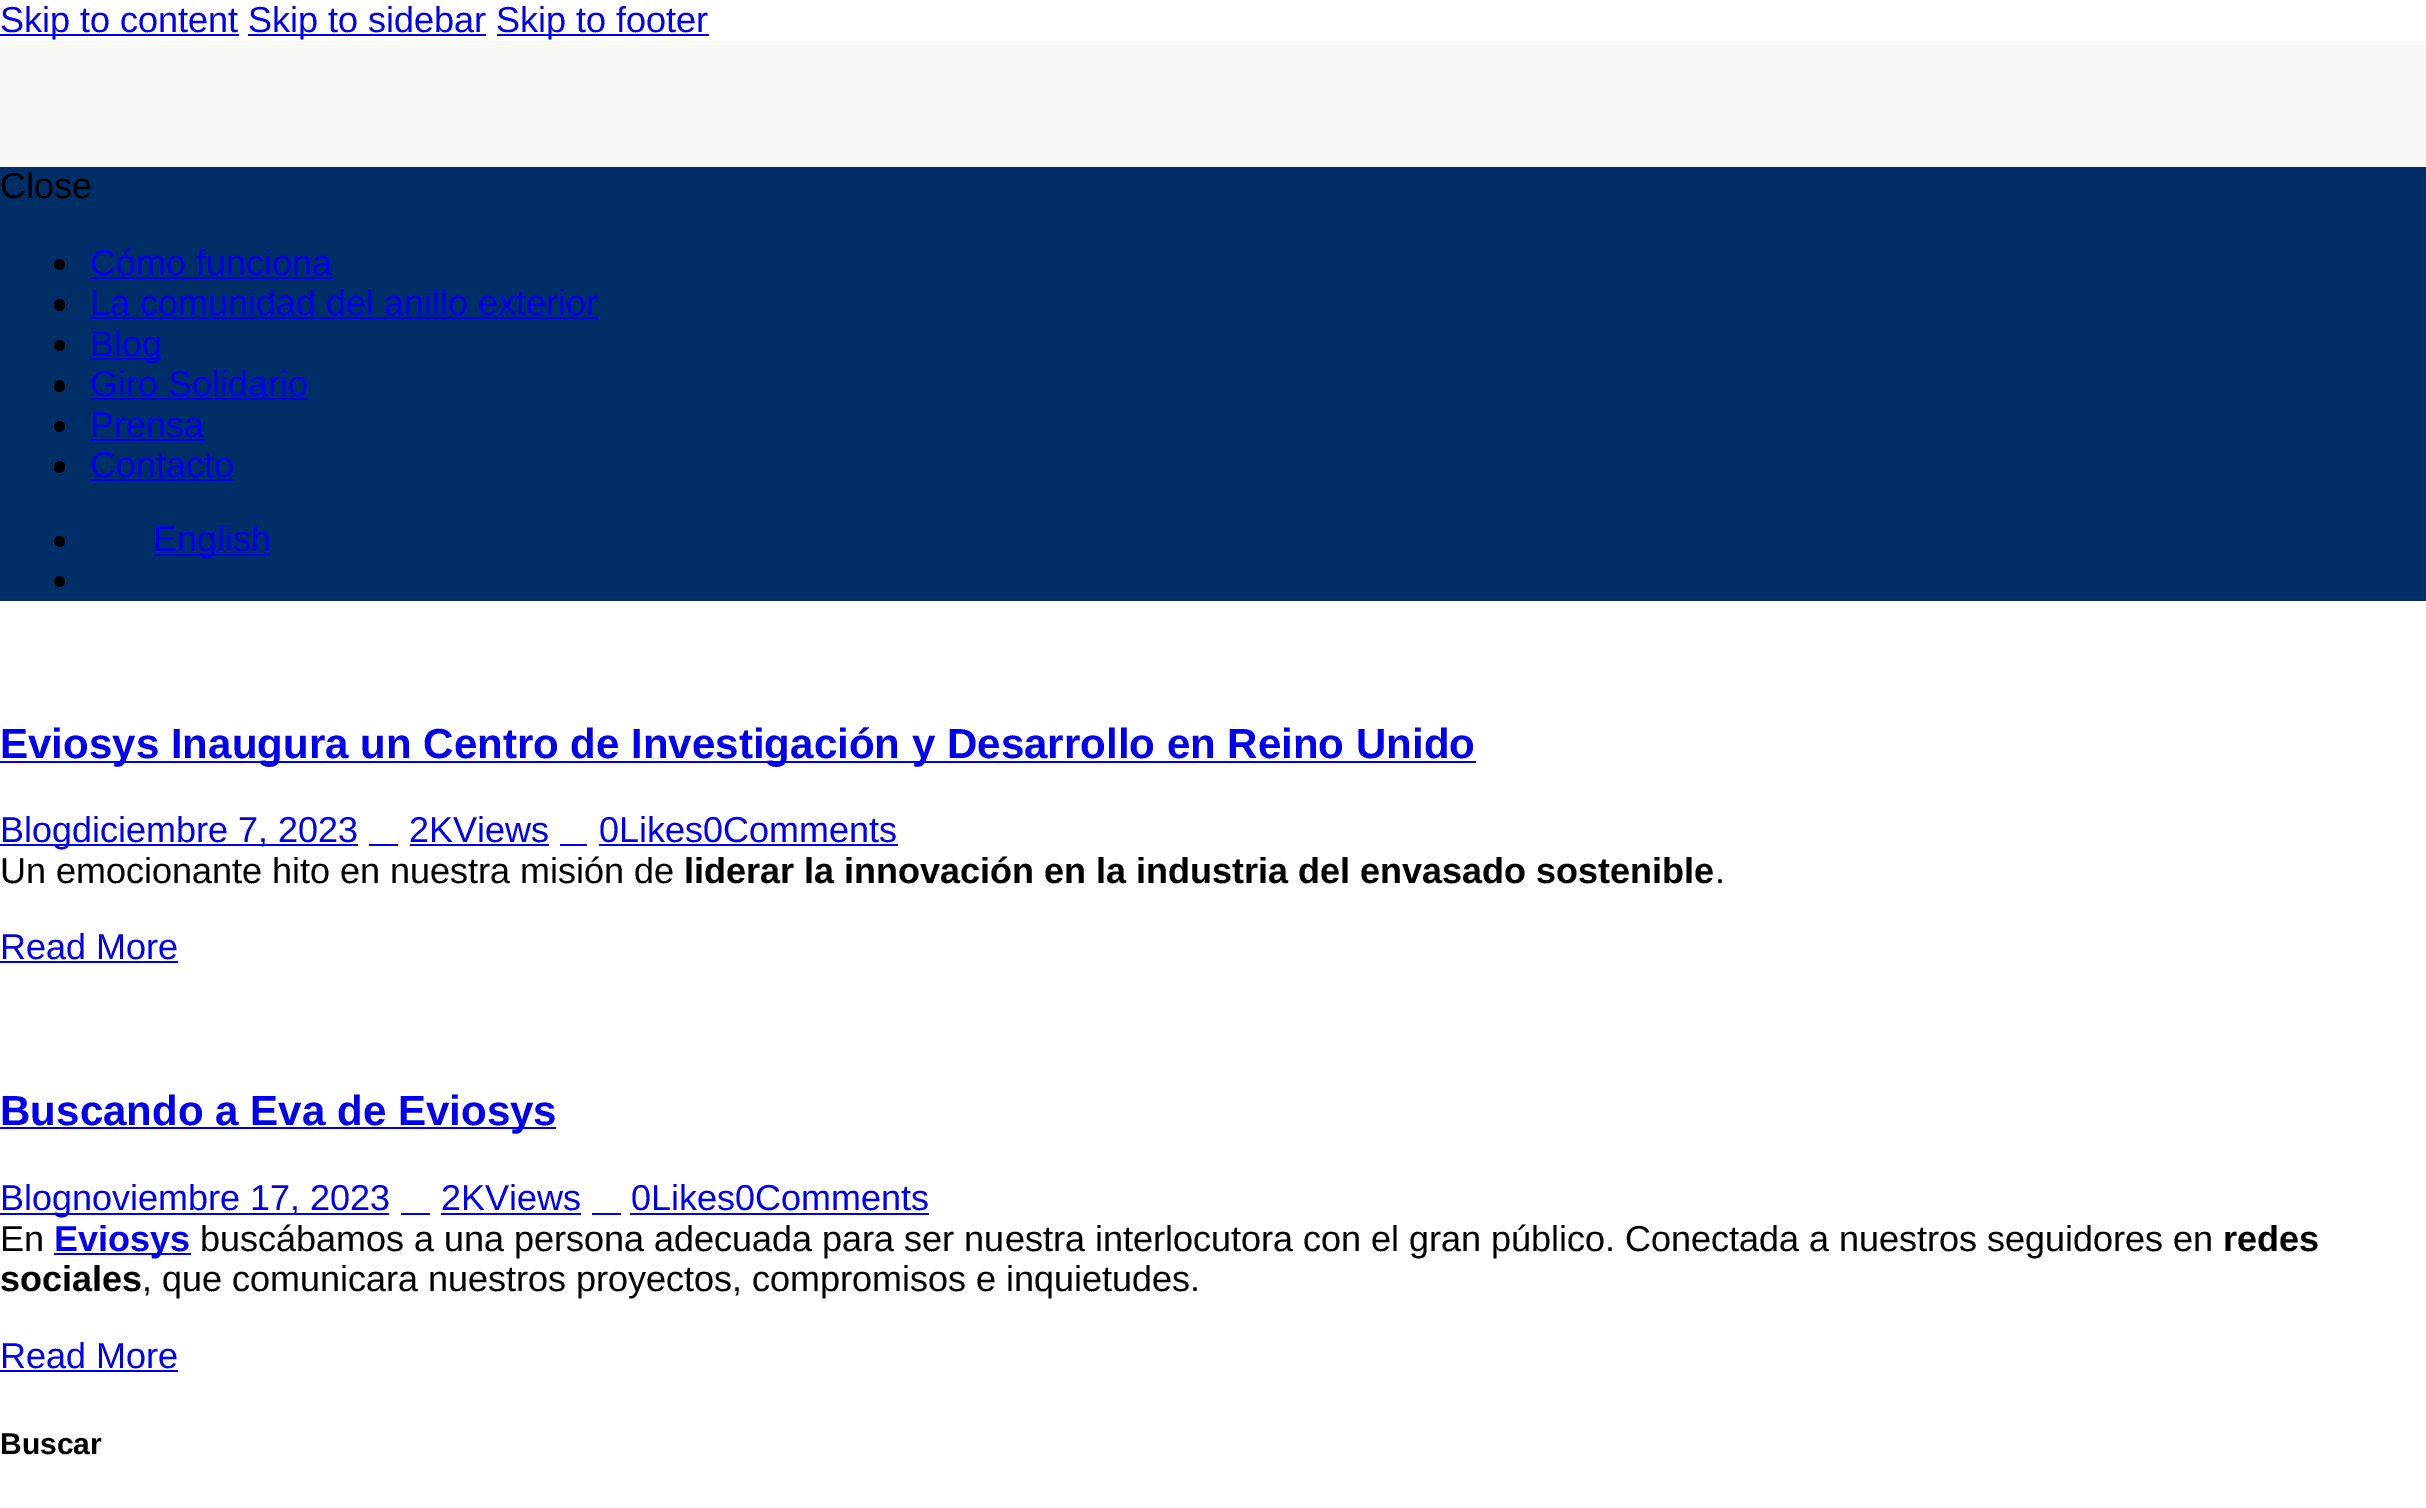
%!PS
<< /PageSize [2426 1508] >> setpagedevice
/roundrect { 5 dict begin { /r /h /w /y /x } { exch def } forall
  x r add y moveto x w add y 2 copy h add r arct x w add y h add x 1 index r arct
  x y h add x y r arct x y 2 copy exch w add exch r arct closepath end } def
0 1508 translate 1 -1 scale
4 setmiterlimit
1 setgray
0 0 2426 1508 rectfill
0 0 0.933 setrgbcolor
0 34 239 2 rectfill
/LiberationSans-Regular [36 0 0 -36 0 0] selectfont
0 32 moveto (Skip to content) show
248 34 238 2 rectfill
248 32 moveto (Skip to sidebar) show
497 34 212 2 rectfill
496 32 moveto (Skip to footer) show
0.973 0.973 0.957 setrgbcolor
0 41 2426 126 rectfill
0 0.18 0.4 setrgbcolor
0 167 2426 434 rectfill
0 setgray
0 198 moveto (Close) show
newpath 59.5 264.5 5.5 0 360 arc closepath fill
0 0 0.933 setrgbcolor
90 275 moveto (Cómo funciona) show
90 277 243 2 rectfill
0 setgray
54 299 11 12 5.5 roundrect fill
0 0 0.933 setrgbcolor
90 315 moveto (La comunidad del anillo exterior) show
90 317 509 2 rectfill
0 setgray
newpath 59.5 345.5 5.5 0 360 arc closepath fill
0 0 0.933 setrgbcolor
90 358 72 2 rectfill
90 356 moveto (Blog) show
0 setgray
54 380 11 12 5.5 roundrect fill
0 0 0.933 setrgbcolor
90 396 moveto (Giro Solidario) show
90 398 218 2 rectfill
0 setgray
newpath 59.5 426.5 5.5 0 360 arc closepath fill
0 0 0.933 setrgbcolor
90 437 moveto (Prensa) show
90 439 115 2 rectfill
0 setgray
54 461 11 12 5.5 roundrect fill
0 0 0.933 setrgbcolor
90 477 moveto (Contacto) show
90 479 144 2 rectfill
0 setgray
newpath 59.5 541.5 5.5 0 360 arc closepath fill
0 0 0.933 setrgbcolor
153 554 117 2 rectfill
153 551 moveto (English) show
0 setgray
newpath 59.5 581.5 5.5 0 360 arc closepath fill
0 0 0.933 setrgbcolor
0 761 1476 2 rectfill
/LiberationSans-Bold [42.1 0 0 -42.1 0 0] selectfont
0 758 moveto -0.1 0 32 (Eviosys Inaugura un Centro de Investigación y Desarrollo en Reino Unido) widthshow
0 844 358 2 rectfill
/LiberationSans-Regular [36 0 0 -36 0 0] selectfont
0 842 moveto (Blogdiciembre 7, 2023) show
409 842 moveto (2KViews) show
410 844 139 2 rectfill
369 844 29 2 rectfill
599 842 moveto (0Likes0Comments) show
599 844 299 2 rectfill
560 844 27 2 rectfill
0 setgray
0 883 moveto (Un emocionante hito en nuestra misión de) show
/LiberationSans-Bold [36 0 0 -36 0 0] selectfont
684 883 moveto (liderar la innovación en la industria del envasado sostenible) show
/LiberationSans-Regular [36 0 0 -36 0 0] selectfont
1715 883 moveto (.) show
0 0 0.933 setrgbcolor
0 959 moveto (Read More) show
0 961 178 2 rectfill
0 1127 556 2 rectfill
/LiberationSans-Bold [42.1 0 0 -42.1 0 0] selectfont
0 1125 moveto (Buscando a Eva de Eviosys) show
0 1213 389 2 rectfill
/LiberationSans-Regular [36 0 0 -36 0 0] selectfont
0 1210 moveto (Blognoviembre 17, 2023) show
441 1210 moveto (2KViews) show
441 1213 140 2 rectfill
401 1213 29 2 rectfill
631 1210 moveto (0Likes0Comments) show
630 1213 299 2 rectfill
592 1213 29 2 rectfill
0 setgray
0 1251 moveto (En) show
0 0 0.933 setrgbcolor
54 1253 137 2 rectfill
/LiberationSans-Bold [36 0 0 -36 0 0] selectfont
54 1251 moveto (Eviosys) show
/LiberationSans-Regular [36 0 0 -36 0 0] selectfont
0 setgray
200 1251 moveto (buscábamos a una persona adecuada para ser nuestra interlocutora con el gran público. Conectada a nuestros seguidores en) show
/LiberationSans-Bold [36 0 0 -36 0 0] selectfont
2223 1251 moveto (redes) show
0 1291 moveto (sociales) show
/LiberationSans-Regular [36 0 0 -36 0 0] selectfont
142 1291 moveto (, que comunicara nuestros proyectos, compromisos e inquietudes.) show
0 0 0.933 setrgbcolor
0 1368 moveto (Read More) show
0 1370 178 2 rectfill
/LiberationSans-Bold [30 0 0 -30 0 0] selectfont
0 setgray
0 1454 moveto (Buscar) show
showpage
